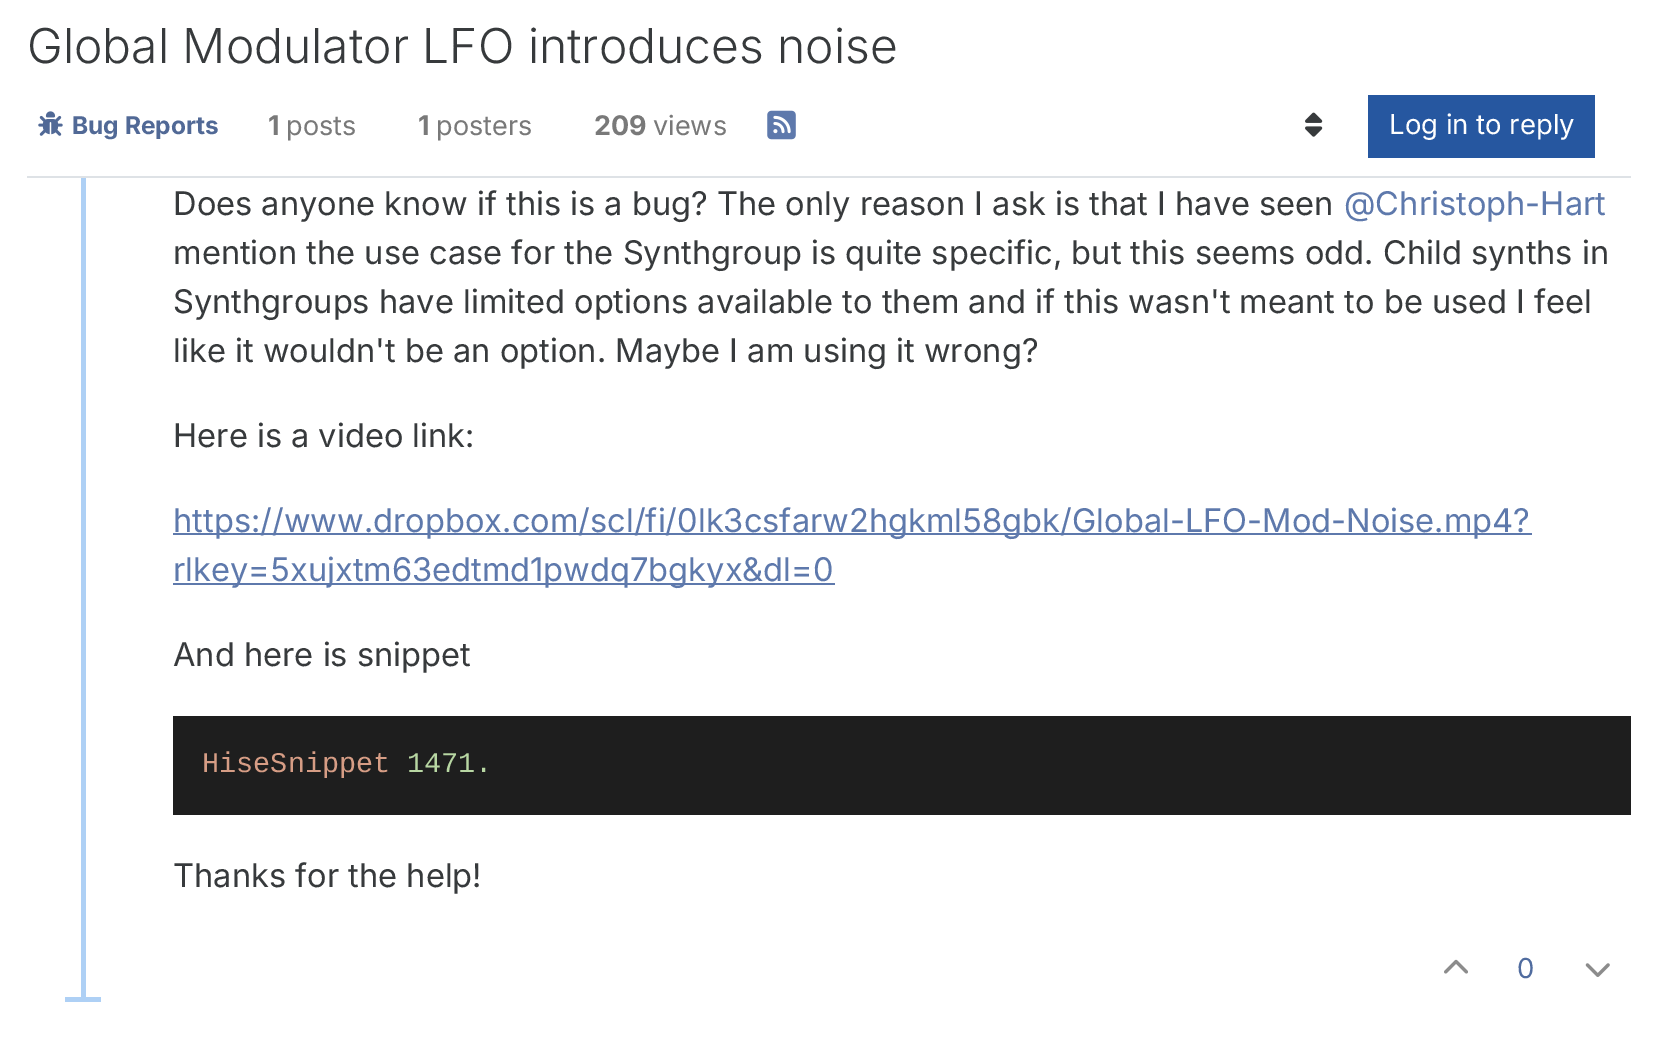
%!PS
<< /PageSize [1658 1054] >> setpagedevice
/picture { 5 dict begin { /h /w /y /x /name } { exch def } forall
  gsave x y translate w h scale
  w h 8 [w 0 0 h 0 0] name (r) file false 3 colorimage grestore end } def
0 1054 translate 1 -1 scale
4 setmiterlimit
1 setgray
0 0 1658 1054 rectfill
0.871 0.886 0.902 setrgbcolor
27 176 1604 2 rectfill
/Inter-Light [48 0 0 -48 0 0] selectfont
0.216 0.227 0.235 setrgbcolor
27 63 moveto (Global Modulator LFO introduces noise) show
(img1.rgb) 38 111 25 25 picture
/Inter-Bold [24.5 0 0 -24.5 0 0] selectfont
0.318 0.412 0.588 setrgbcolor
72 134 moveto (Bug Reports) show
/Inter-Bold [27 0 0 -27 0 0] selectfont
0.475 setgray
268 135 moveto (1) show
/Inter-Regular [27 0 0 -27 0 0] selectfont
286 135 moveto (posts) show
/Inter-Bold [27 0 0 -27 0 0] selectfont
418 135 moveto (1) show
/Inter-Regular [27 0 0 -27 0 0] selectfont
436 135 moveto (posters) show
/Inter-Bold [27 0 0 -27 0 0] selectfont
594 135 moveto (209) show
/Inter-Regular [27 0 0 -27 0 0] selectfont
653 135 moveto (views) show
(img2.rgb) 767 110 29 30 picture
(img3.rgb) 1305 112 18 25 picture
0.149 0.341 0.627 setrgbcolor
1368 95 227 63 rectfill
/Inter-Regular [27.5 0 0 -27.5 0 0] selectfont
1 setgray
1389 134 moveto (Log in to reply) show
0.682 0.816 0.961 setrgbcolor
81 178 5 823 rectfill
/Inter-Regular [32.6 0 0 -32.6 0 0] selectfont
0.216 0.227 0.235 setrgbcolor
173 215 moveto (Does anyone know if this is a bug? The only reason I ask is that I have seen) show
0.369 0.475 0.675 setrgbcolor
1344 215 moveto (@Christoph-Hart) show
0.216 0.227 0.235 setrgbcolor
173 264 moveto (mention the use case for the Synthgroup is quite specific, but this seems odd. Child synths in) show
173 313 moveto (Synthgroups have limited options available to them and if this wasn't meant to be used I feel) show
173 362 moveto (like it wouldn't be an option. Maybe I am using it wrong?) show
173 447 moveto (Here is a video link:) show
0.369 0.475 0.675 setrgbcolor
173 533 1359 2 rectfill
173 532 moveto (https://www.dropbox.com/scl/fi/0lk3csfarw2hgkml58gbk/Global-LFO-Mod-Noise.mp4?) show
173 583 662 2 rectfill
173 581 moveto (rlkey=5xujxtm63edtmd1pwdq7bgkyx&dl=0) show
0.216 0.227 0.235 setrgbcolor
173 666 moveto (And here is snippet) show
0.118 setgray
173 716 1458 99 rectfill
/LiberationMono-Regular [28.5 0 0 -28.5 0 0] selectfont
0.839 0.616 0.522 setrgbcolor
202 772 moveto (HiseSnippet) show
0.722 0.843 0.639 setrgbcolor
407 772 moveto (1471.) show
/Inter-Regular [32.6 0 0 -32.6 0 0] selectfont
0.216 0.227 0.235 setrgbcolor
173 887 moveto (Thanks for the help!) show
(img4.rgb) 1444 959 24 15 picture
/Inter-Regular [27.5 0 0 -27.5 0 0] selectfont
0.314 0.424 0.624 setrgbcolor
1517 978 moveto (0) show
(img5.rgb) 1585 963 25 14 picture
0.682 0.816 0.961 setrgbcolor
65 997 36 5 rectfill
showpage
